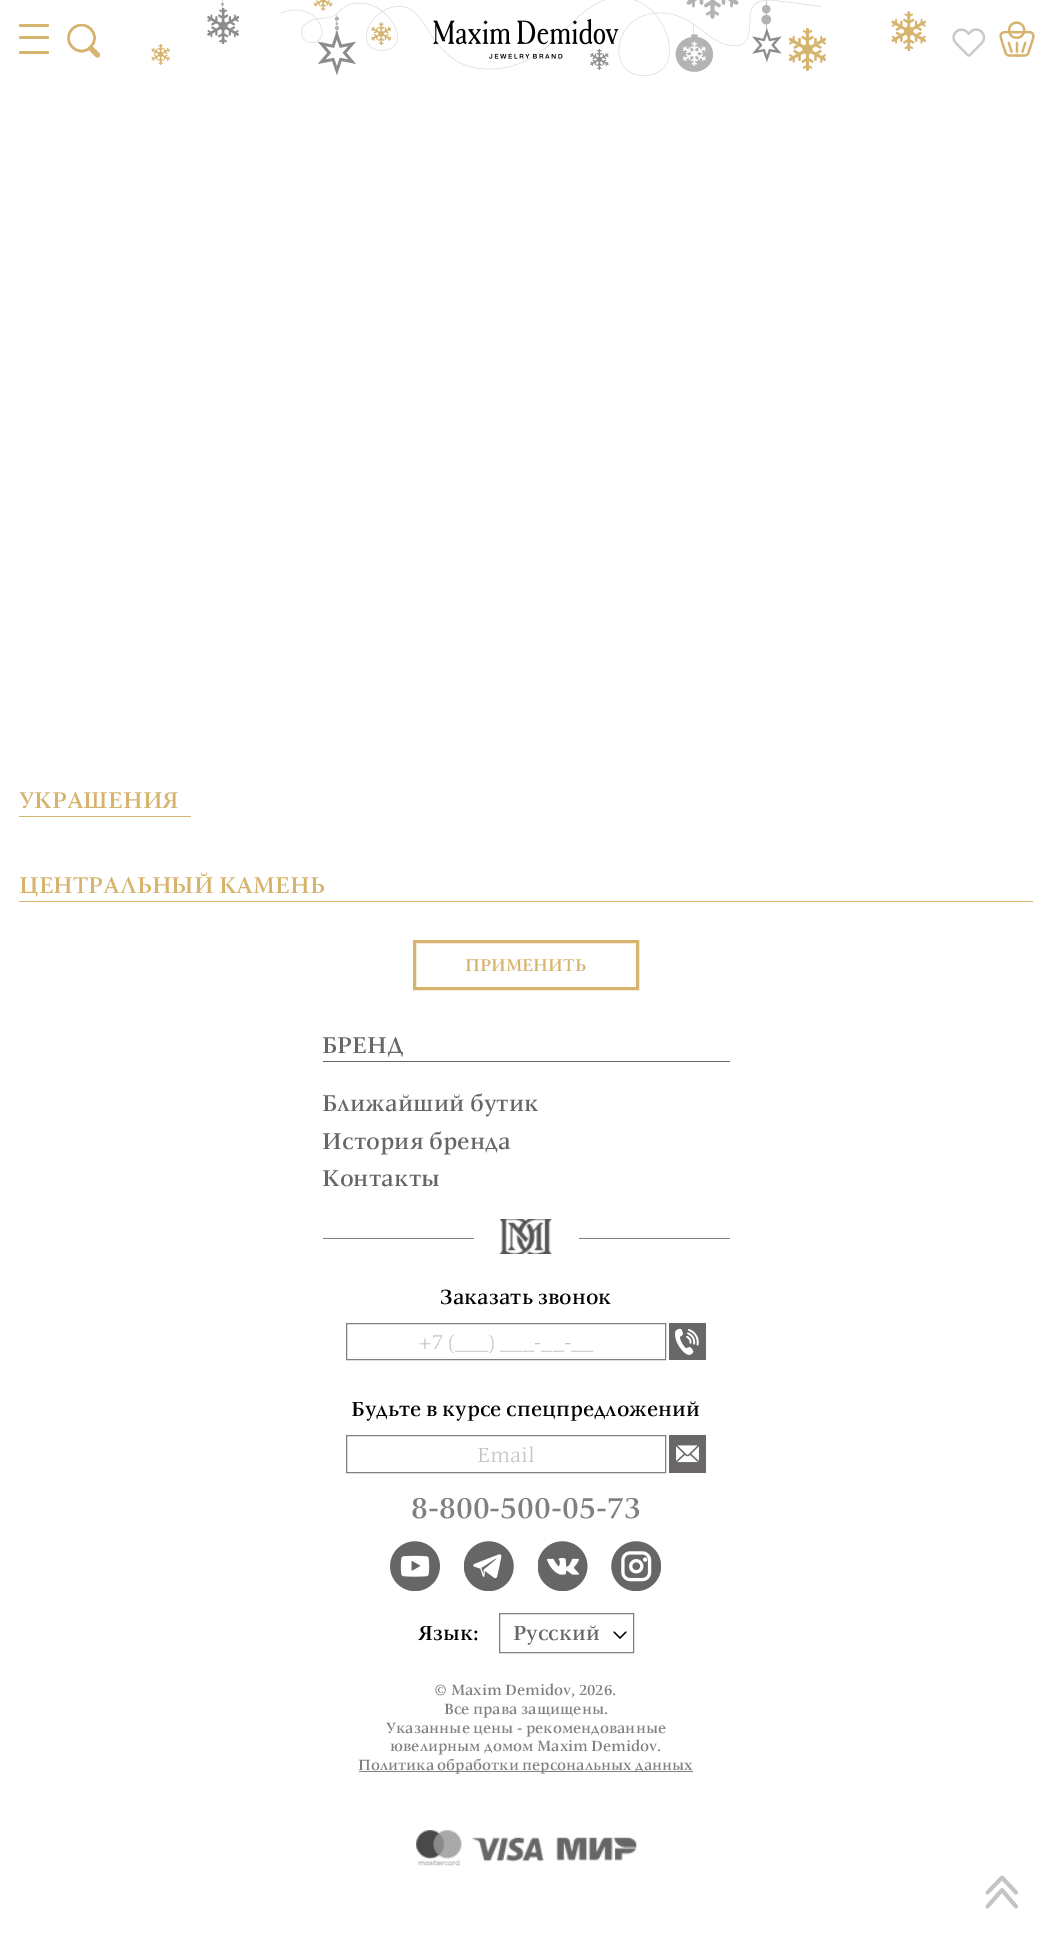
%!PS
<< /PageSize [1063 1941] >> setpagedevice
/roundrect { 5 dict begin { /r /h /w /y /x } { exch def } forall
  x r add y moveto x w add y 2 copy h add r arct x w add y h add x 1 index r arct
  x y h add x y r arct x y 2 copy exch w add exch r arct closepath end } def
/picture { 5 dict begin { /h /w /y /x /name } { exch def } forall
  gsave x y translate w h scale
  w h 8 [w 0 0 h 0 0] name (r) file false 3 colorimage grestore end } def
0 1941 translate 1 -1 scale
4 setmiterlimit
1 setgray
0 0 1063 1941 rectfill
(img1.rgb) 221 0 3 9 picture
(img2.rgb) 207 8 32 36 picture
(img6.rgb) 761 0 10 31 picture
(img7.rgb) 752 28 30 35 picture
(img10.rgb) 334 14 5 20 picture
(img11.rgb) 318 30 38 46 picture
0.89 0.89 0.894 setrgbcolor
693 24 1 12 rectfill
(img14.rgb) 675 34 39 38 picture
(img15.rgb) 789 28 37 43 picture
(img3.rgb) 281 0 541 76 picture
(img4.rgb) 314 0 19 11 picture
(img5.rgb) 686 0 53 19 picture
(img8.rgb) 891 11 35 40 picture
(img9.rgb) 151 44 19 21 picture
(img12.rgb) 371 22 20 24 picture
(img13.rgb) 590 49 19 21 picture
0.839 0.706 0.431 setrgbcolor
19 24 30 3 1.5 roundrect fill
19 36 30 3 1.5 roundrect fill
19 51 30 3 1.5 roundrect fill
gsave
66 24 34 35 rectclip
2.5 setlinewidth
newpath 81.5 38 13 0 360 arc closepath stroke
grestore
5 setlinewidth
1 setlinecap
newpath 91.5 49 moveto 97.5 55 lineto stroke
(img16.rgb) 433 19 186 40 picture
(img17.rgb) 952 28 34 29 picture
(img18.rgb) 999 21 36 36 picture
/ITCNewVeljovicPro-Medium [25 0 0 -25 0 0] selectfont
19 808 moveto (УКРАШЕНИЯ) show
19 816 172 1 rectfill
19 893 moveto (ЦЕНТРАЛЬНЫЙ КАМЕНЬ) show
19 901 1014 1 rectfill
3 setlinewidth
0 setlinecap
414.5 941.5 223 47 rectstroke
/ITCNewVeljovicPro-Medium [18.75 0 0 -18.75 0 0] selectfont
465 971 moveto (ПРИМЕНИТЬ) show
/ITCNewVeljovicPro-Medium [25 0 0 -25 0 0] selectfont
0.4 setgray
322 1053 moveto (БРЕНД) show
323 1061 407 1 rectfill
322 1111 moveto (Ближайший бутик) show
322 1149 moveto (История бренда) show
322 1186 moveto (Контакты) show
0.502 setgray
323 1238 407 1 rectfill
1 setgray
474 1238 105 1 rectfill
(img19.rgb) 499 1219 54 35 picture
/ITCNewVeljovicPro-Medium [22.5 0 0 -22.5 0 0] selectfont
0 setgray
440 1304 moveto (Заказать звонок) show
0.502 setgray
1 setlinewidth
346.5 1323.5 319 36 rectstroke
/ITCNewVeljovicPro-Regular [22.5 0 0 -22.5 0 0] selectfont
0.769 setgray
418 1349 moveto (+7 \(___\) ___-__-__) show
0.416 0.404 0.408 setrgbcolor
669 1323 37 37 rectfill
(img20.rgb) 675 1328 24 27 picture
/ITCNewVeljovicPro-Medium [22.5 0 0 -22.5 0 0] selectfont
0 setgray
351 1416 moveto (Будьте в курсе спецпредложений) show
0.502 setgray
346.5 1435.5 319 37 rectstroke
/ITCNewVeljovicPro-Regular [22.5 0 0 -22.5 0 0] selectfont
0.769 setgray
477 1462 moveto (Email) show
0.416 0.404 0.408 setrgbcolor
669 1435 37 38 rectfill
(img21.rgb) 676 1445 23 18 picture
/ITCNewVeljovicPro-Medium [32.5 0 0 -32.5 0 0] selectfont
0.502 setgray
411 1518 moveto (8-800-500-05-73) show
(img22.rgb) 390 1541 50 50 picture
(img23.rgb) 464 1541 50 50 picture
(img24.rgb) 538 1541 50 50 picture
(img25.rgb) 611 1541 50 50 picture
/ITCNewVeljovicPro-Medium [22.5 0 0 -22.5 0 0] selectfont
0 setgray
418 1640 moveto (Язык:) show
0.502 setgray
499.5 1613.5 134 39 rectstroke
0.4 setgray
513 1640 moveto (Русский) show
0 setgray
1.2 setlinewidth
1 setlinecap
newpath 614 1632 moveto 620 1638 lineto 626 1632 lineto stroke
/ITCNewVeljovicPro-Medium [16.25 0 0 -16.25 0 0] selectfont
0.502 setgray
434 1695 moveto (© Maxim Demidov, 2026.) show
444 1714 moveto (Все права защищены.) show
386 1733 moveto (Указанные цены - рекомендованные) show
390 1751 moveto (ювелирным домом Maxim Demidov.) show
359 1771 334 1 rectfill
358 1770 moveto (Политика обработки персональных данных) show
(img26.rgb) 416 1830 221 36 picture
0.769 setgray
3.8 setlinewidth
1 setlinejoin
newpath 1016 1892.5 moveto 1002 1877.5 lineto 987.5 1892.5 lineto 1016 1906.5 moveto 1002 1890 lineto 987.5 1906.5 lineto stroke
showpage
